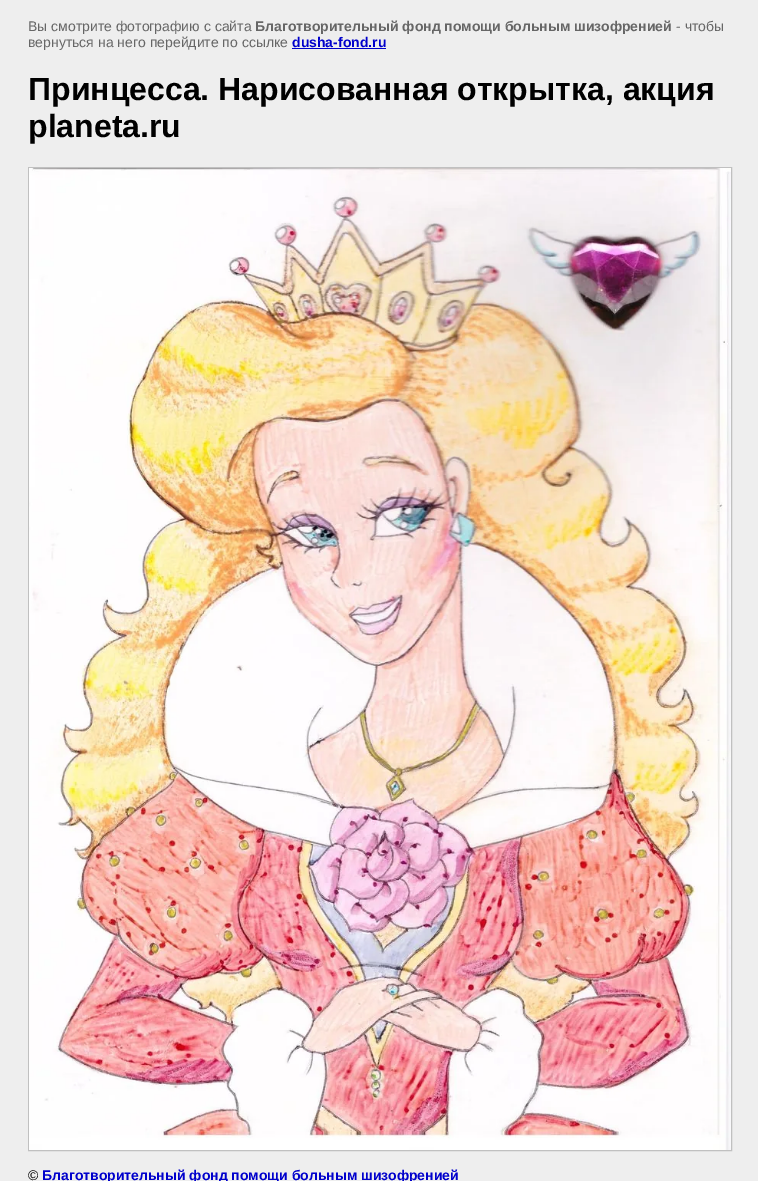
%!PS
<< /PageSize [758 1181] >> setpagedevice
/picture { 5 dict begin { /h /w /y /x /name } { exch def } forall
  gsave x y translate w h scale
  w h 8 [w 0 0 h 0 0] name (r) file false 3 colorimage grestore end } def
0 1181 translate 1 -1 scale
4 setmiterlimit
0.933 setgray
0 0 758 1181 rectfill
/LiberationSans-Regular [14 0 0 -14 0 0] selectfont
0.4 setgray
28 31 moveto (Вы смотрите фотографию с сайта) show
/LiberationSans-Bold [14 0 0 -14 0 0] selectfont
255 31 moveto (Благотворительный фонд помощи больным шизофренией) show
/LiberationSans-Regular [14 0 0 -14 0 0] selectfont
676 31 moveto (- чтобы) show
28 47 moveto (вернуться на него перейдите по ссылке) show
/LiberationSans-Bold [14 0 0 -14 0 0] selectfont
0 0 0.8 setrgbcolor
292 47 moveto (dusha-fond.ru) show
292 48 94 1 rectfill
/LiberationSans-Bold [32 0 0 -32 0 0] selectfont
0 setgray
28 100 moveto (Принцесса. Нарисованная открытка, акция) show
28 137 moveto (planeta.ru) show
0.753 setgray
28.5 167.5 703 983 rectstroke
(img1.rgb) 29 168 702 982 picture
/LiberationSans-Regular [14 0 0 -14 0 0] selectfont
0 setgray
28 1180 moveto (©) show
/LiberationSans-Bold [14 0 0 -14 0 0] selectfont
0 0 0.8 setrgbcolor
42 1180 moveto (Благотворительный фонд помощи больным шизофренией) show
showpage
